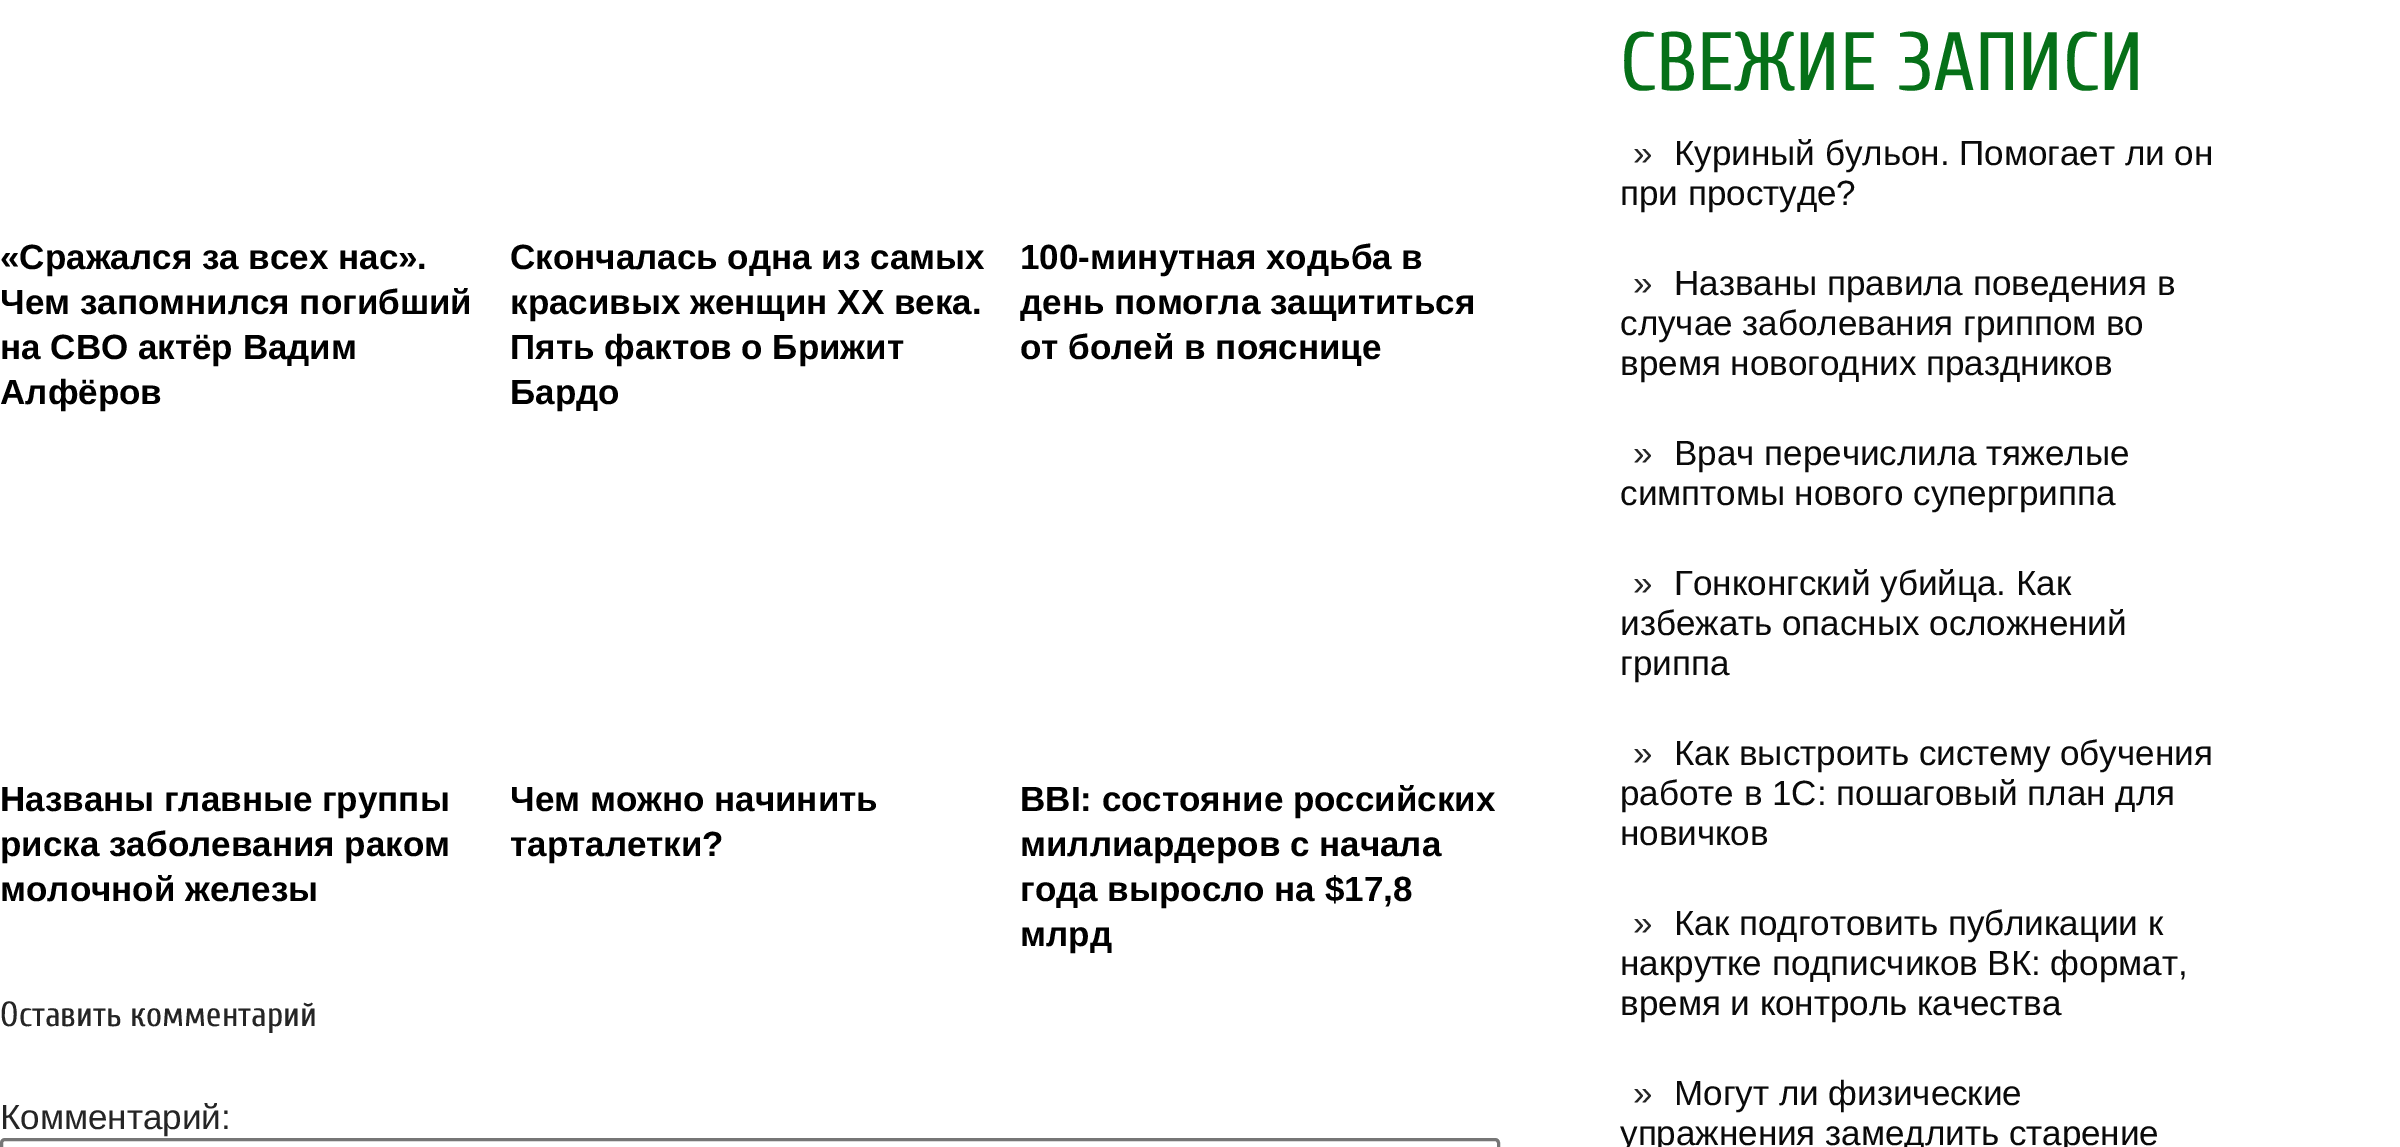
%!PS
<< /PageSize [2400 1147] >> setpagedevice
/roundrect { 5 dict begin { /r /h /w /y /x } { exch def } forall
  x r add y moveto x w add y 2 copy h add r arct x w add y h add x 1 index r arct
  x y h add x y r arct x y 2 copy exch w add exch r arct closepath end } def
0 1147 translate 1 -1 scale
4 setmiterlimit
1 setgray
0 0 2400 1147 rectfill
/LiberationSans-Bold [35 0 0 -35 0 0] selectfont
0 setgray
0 269 moveto («Сражался за всех нас».) show
0 314 moveto (Чем запомнился погибший) show
0 359 moveto (на СВО актёр Вадим) show
0 404 moveto (Алфёров) show
510 269 moveto (Скончалась одна из самых) show
510 314 moveto (красивых женщин XX века.) show
510 359 moveto (Пять фактов о Брижит) show
510 404 moveto (Бардо) show
1020 269 moveto (100-минутная ходьба в) show
1020 314 moveto (день помогла защититься) show
1020 359 moveto (от болей в пояснице) show
0 811 moveto (Названы главные группы) show
0 856 moveto (риска заболевания раком) show
0 901 moveto (молочной железы) show
510 811 moveto (Чем можно начинить) show
510 856 moveto (тарталетки?) show
1020 811 moveto (BBI: состояние российских) show
1020 856 moveto (миллиардеров с начала) show
1020 901 moveto (года выросло на $17,8) show
1020 946 moveto (млрд) show
/Cuprum-Regular [35 0 0 -35 0 0] selectfont
0.145 setgray
0 1026 moveto (Оставить комментарий) show
/LiberationSans-Regular [35 0 0 -35 0 0] selectfont
0 1129 moveto (Комментарий:) show
0.463 setgray
3 setlinewidth
1.5 1139.5 1497 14 3.5 roundrect stroke
/Cuprum-Regular [82.5 0 0 -82.5 0 0] selectfont
0.024 0.439 0.094 setrgbcolor
1620 90 moveto (СВЕЖИЕ ЗАПИСИ) show
/LiberationSans-Regular [35 0 0 -35 0 0] selectfont
0.145 setgray
1633 165 moveto (») show
0.039 setgray
1674 165 moveto (Куриный бульон. Помогает ли он) show
1620 205 moveto (при простуде?) show
0.145 setgray
1633 295 moveto (») show
0.039 setgray
1674 295 moveto (Названы правила поведения в) show
1620 335 moveto (случае заболевания гриппом во) show
1620 375 moveto (время новогодних праздников) show
0.145 setgray
1633 465 moveto (») show
0.039 setgray
1674 465 moveto (Врач перечислила тяжелые) show
1620 505 moveto (симптомы нового супергриппа) show
0.145 setgray
1633 595 moveto (») show
0.039 setgray
1674 595 moveto (Гонконгский убийца. Как) show
1620 635 moveto (избежать опасных осложнений) show
1620 675 moveto (гриппа) show
0.145 setgray
1633 765 moveto (») show
0.039 setgray
1674 765 moveto (Как выстроить систему обучения) show
1620 805 moveto (работе в 1С: пошаговый план для) show
1620 845 moveto (новичков) show
0.145 setgray
1633 935 moveto (») show
0.039 setgray
1674 935 moveto (Как подготовить публикации к) show
1620 975 moveto (накрутке подписчиков ВК: формат,) show
1620 1015 moveto (время и контроль качества) show
0.145 setgray
1633 1105 moveto (») show
0.039 setgray
1674 1105 moveto (Могут ли физические) show
1620 1145 moveto (упражнения замедлить старение) show
showpage
